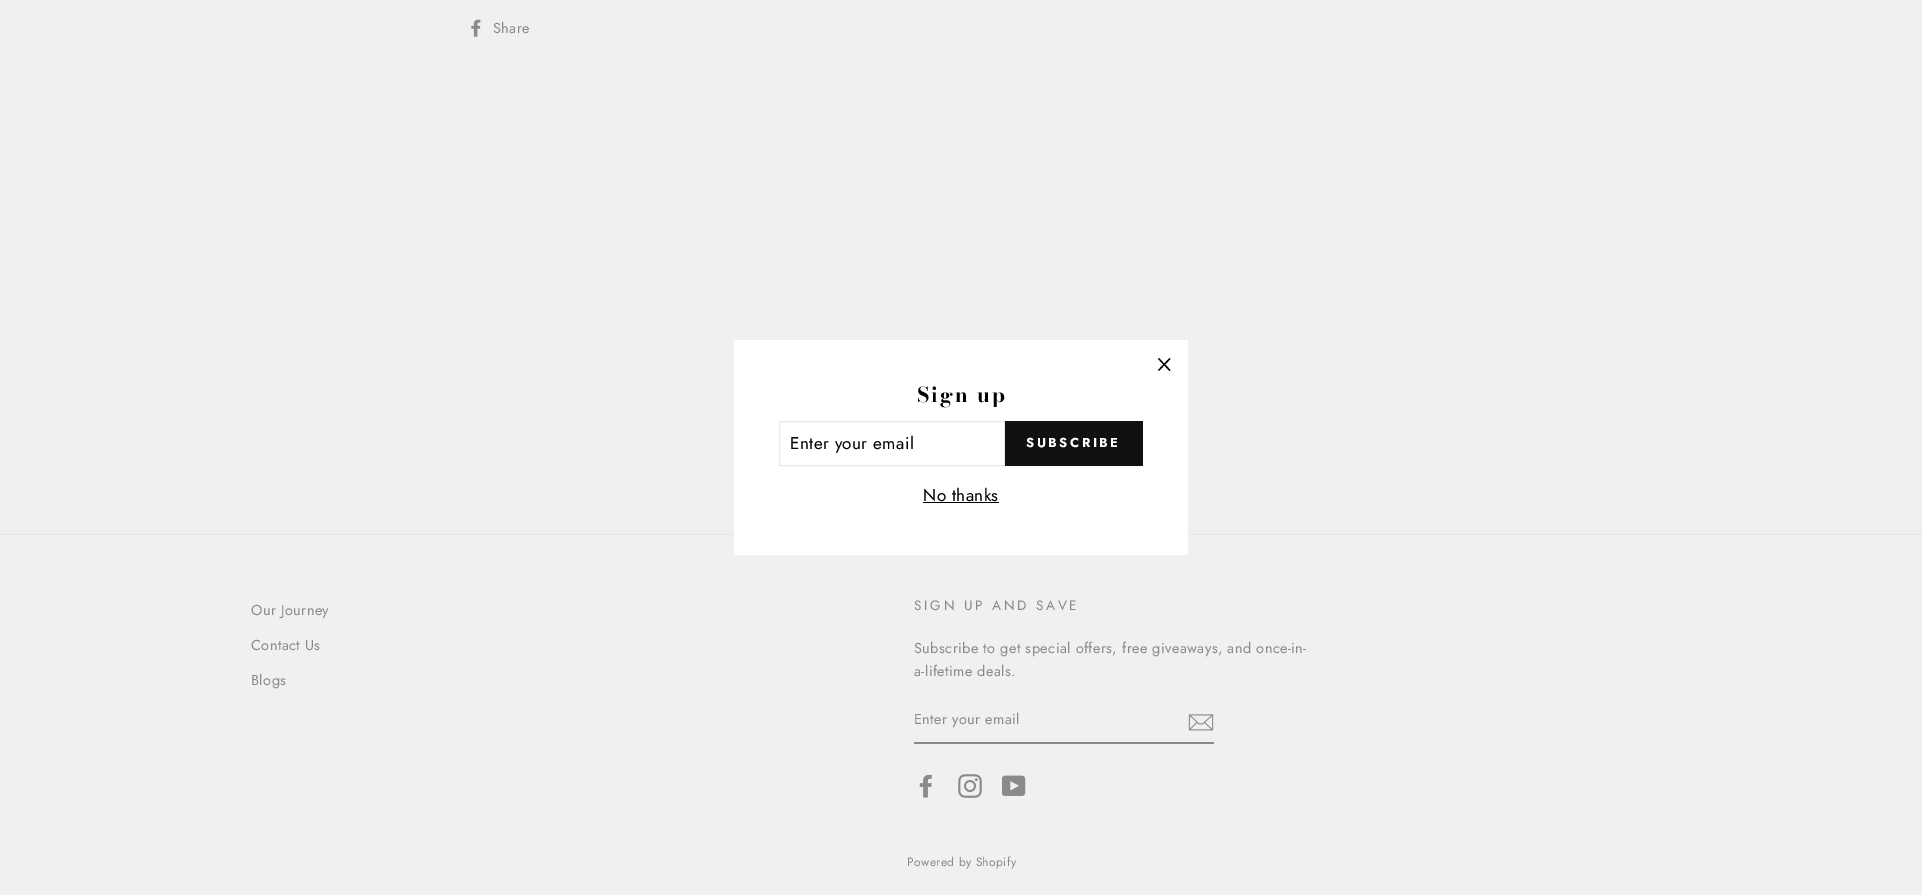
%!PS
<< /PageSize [1922 895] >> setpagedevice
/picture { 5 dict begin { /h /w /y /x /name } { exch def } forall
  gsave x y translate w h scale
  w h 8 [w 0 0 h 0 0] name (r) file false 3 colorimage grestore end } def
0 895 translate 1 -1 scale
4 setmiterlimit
0.941 setgray
0 0 1922 895 rectfill
(img1.rgb) 471 19 10 18 picture
/Jost-Regular [14.45 0 0 -14.45 0 0] selectfont
0.541 setgray
493 33 moveto 0.42 0 (Share) ashow
0.906 0.906 0.894 setrgbcolor
0 534 1922 1 rectfill
0.541 setgray
251 615 moveto 0.42 0 (Our Journey) ashow
251 650 moveto 0.42 0 (Contact Us) ashow
251 685 moveto 0.42 0 (Blogs) ashow
/Jost-Regular [13.6 0 0 -13.6 0 0] selectfont
914 610 moveto 2.75 0 (SIGN UP AND SAVE) ashow
/Jost-Regular [14.45 0 0 -14.45 0 0] selectfont
914 653 moveto 0.42 0 (Subscribe to get special offers, free giveaways, and once-in-) ashow
914 676 moveto 0.42 0 (a-lifetime deals.) ashow
914 742 300 2 rectfill
914 724 moveto 0.4 0 (Enter your email) ashow
(img2.rgb) 1188 714 26 17 picture
(img3.rgb) 919 774 13 24 picture
(img4.rgb) 958 774 24 24 picture
(img5.rgb) 1002 775 24 21 picture
/Jost-Regular [12 0 0 -12 0 0] selectfont
907 866 moveto 0.42 0 (Powered by Shopify) ashow
1 setgray
734 340 454 215 rectfill
0 setgray
1.3 setlinewidth
newpath 1158.5 358.5 moveto 1170 370.5 lineto 1170 358.5 moveto 1158.5 370.5 lineto stroke
/BodoniModa-Bold [20.5 0 0 -20.5 0 0] selectfont
917 402 moveto 2 0 (Sign up) ashow
0.91 0.91 0.882 setrgbcolor
1 setlinewidth
779.5 421.5 225 44 rectstroke
/Jost-Regular [17 0 0 -17 0 0] selectfont
0 setgray
790 449 moveto 0.42 0 (Enter your email) ashow
0.067 setgray
1005 421 138 45 rectfill
/Jost-Bold [13 0 0 -13 0 0] selectfont
1 setgray
1026 447 moveto 2.5 0 (SUBSCRIBE) ashow
/Jost-Regular [17 0 0 -17 0 0] selectfont
0 setgray
923 501 moveto 0.42 0 (No thanks) ashow
923 502 76 1 rectfill
showpage
